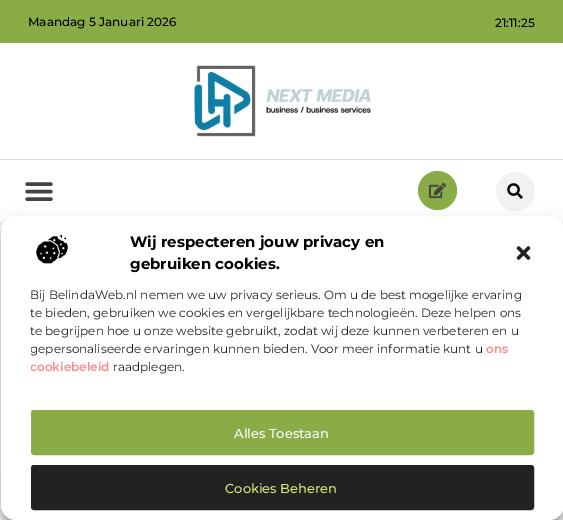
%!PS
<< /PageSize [563 520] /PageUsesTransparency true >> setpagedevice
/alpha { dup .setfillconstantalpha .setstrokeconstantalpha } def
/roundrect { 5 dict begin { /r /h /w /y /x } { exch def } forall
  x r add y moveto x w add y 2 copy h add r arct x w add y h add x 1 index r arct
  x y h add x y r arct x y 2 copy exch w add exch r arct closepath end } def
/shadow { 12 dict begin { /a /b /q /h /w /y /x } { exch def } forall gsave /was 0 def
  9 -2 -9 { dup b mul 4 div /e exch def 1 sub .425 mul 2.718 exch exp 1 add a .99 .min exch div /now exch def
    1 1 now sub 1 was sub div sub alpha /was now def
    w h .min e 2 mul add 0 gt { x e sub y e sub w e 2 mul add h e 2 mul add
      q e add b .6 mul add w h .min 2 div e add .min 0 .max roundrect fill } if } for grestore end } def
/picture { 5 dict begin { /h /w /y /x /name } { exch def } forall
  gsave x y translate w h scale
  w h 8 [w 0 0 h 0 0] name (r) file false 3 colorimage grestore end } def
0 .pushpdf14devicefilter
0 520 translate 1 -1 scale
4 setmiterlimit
1 setgray
0 0 563 520 rectfill
gsave
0 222 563 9 rectclip
0 setgray
0 5 563 222 0 10 0.1 shadow
grestore
0.537 0.675 0.275 setrgbcolor
0 0 563 43 rectfill
/Montserrat-Medium [12 0 0 -12 0 0] selectfont
0 setgray
28 26 moveto (Maandag 5 Januari 2026) show
495 27 moveto (21:11:25) show
0.867 0.863 0.863 setrgbcolor
0 159 563 1 rectfill
(img1.rgb) 194 65 177 72 picture
(img2.rgb) 25 182 28 19 picture
0.537 0.675 0.275 setrgbcolor
newpath 437.5 190.5 19.5 0 360 arc closepath fill
(img3.rgb) 429 183 17 16 picture
0.949 setgray
newpath 515.5 191.5 19.5 0 360 arc closepath fill
(img4.rgb) 507 183 16 16 picture
gsave
newpath 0 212 moveto 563 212 lineto 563 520 lineto 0 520 lineto closepath 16 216 moveto 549 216 lineto 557.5 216 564 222.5 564 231 curveto 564 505 lineto 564 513.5 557.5 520 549 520 curveto 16 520 lineto 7.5 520 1 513.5 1 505 curveto 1 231 lineto 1 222.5 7.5 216 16 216 curveto closepath eoclip newpath
0 setgray
1 222 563 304 15 3 0.23 shadow
grestore
gsave
newpath 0 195 moveto 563 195 lineto 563 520 lineto 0 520 lineto closepath 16 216 moveto 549 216 lineto 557.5 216 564 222.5 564 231 curveto 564 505 lineto 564 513.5 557.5 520 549 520 curveto 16 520 lineto 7.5 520 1 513.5 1 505 curveto 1 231 lineto 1 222.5 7.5 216 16 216 curveto closepath eoclip newpath
0 setgray
1 226 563 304 15 10 0.19 shadow
grestore
0 setgray
28 474 507 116 10 20 0.16 shadow
1 setgray
1 216 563 304 15 roundrect fill
(img5.rgb) 35 235 33 29 picture
/Montserrat-Bold [15 0 0 -15 0 0] selectfont
0 setgray
130 247 moveto (Wij respecteren jouw privacy en) show
130 269 moveto (gebruiken cookies.) show
(img6.rgb) 516 246 15 14 picture
/Montserrat-Regular [12 0 0 -12 0 0] selectfont
0.133 setgray
30 299 moveto (Bij BelindaWeb.nl nemen we uw privacy serieus. Om u de best mogelijke ervaring) show
30 317 moveto (te bieden, gebruiken we cookies en vergelijkbare technologieën. Deze helpen ons) show
30 335 moveto (te begrijpen hoe u onze website gebruikt, zodat wij deze kunnen verbeteren en u) show
gsave
31 286 503 104 rectclip
30 353 moveto (gepersonaliseerde ervaringen kunnen bieden. Voor meer informatie kunt u) show
grestore
/Montserrat-SemiBold [12 0 0 -12 0 0] selectfont
1 0.537 0.537 setrgbcolor
486 353 moveto (ons) show
gsave
31 286 503 104 rectclip
30 371 moveto (cookiebeleid) show
grestore
/Montserrat-Regular [12 0 0 -12 0 0] selectfont
0.133 setgray
113 371 moveto (raadplegen.) show
0.537 0.675 0.275 setrgbcolor
31.5 410.5 502 44 2.5 roundrect gsave fill grestore
stroke
/Montserrat-Medium [13 0 0 -13 0 0] selectfont
1 setgray
234 438 moveto (Alles Toestaan) show
0.133 setgray
31.5 465.5 502 44 2.5 roundrect gsave fill grestore
stroke
0.827 0.902 0.443 setrgbcolor
225 493 moveto (Cookies Beheren) show
.poppdf14devicefilter showpage
